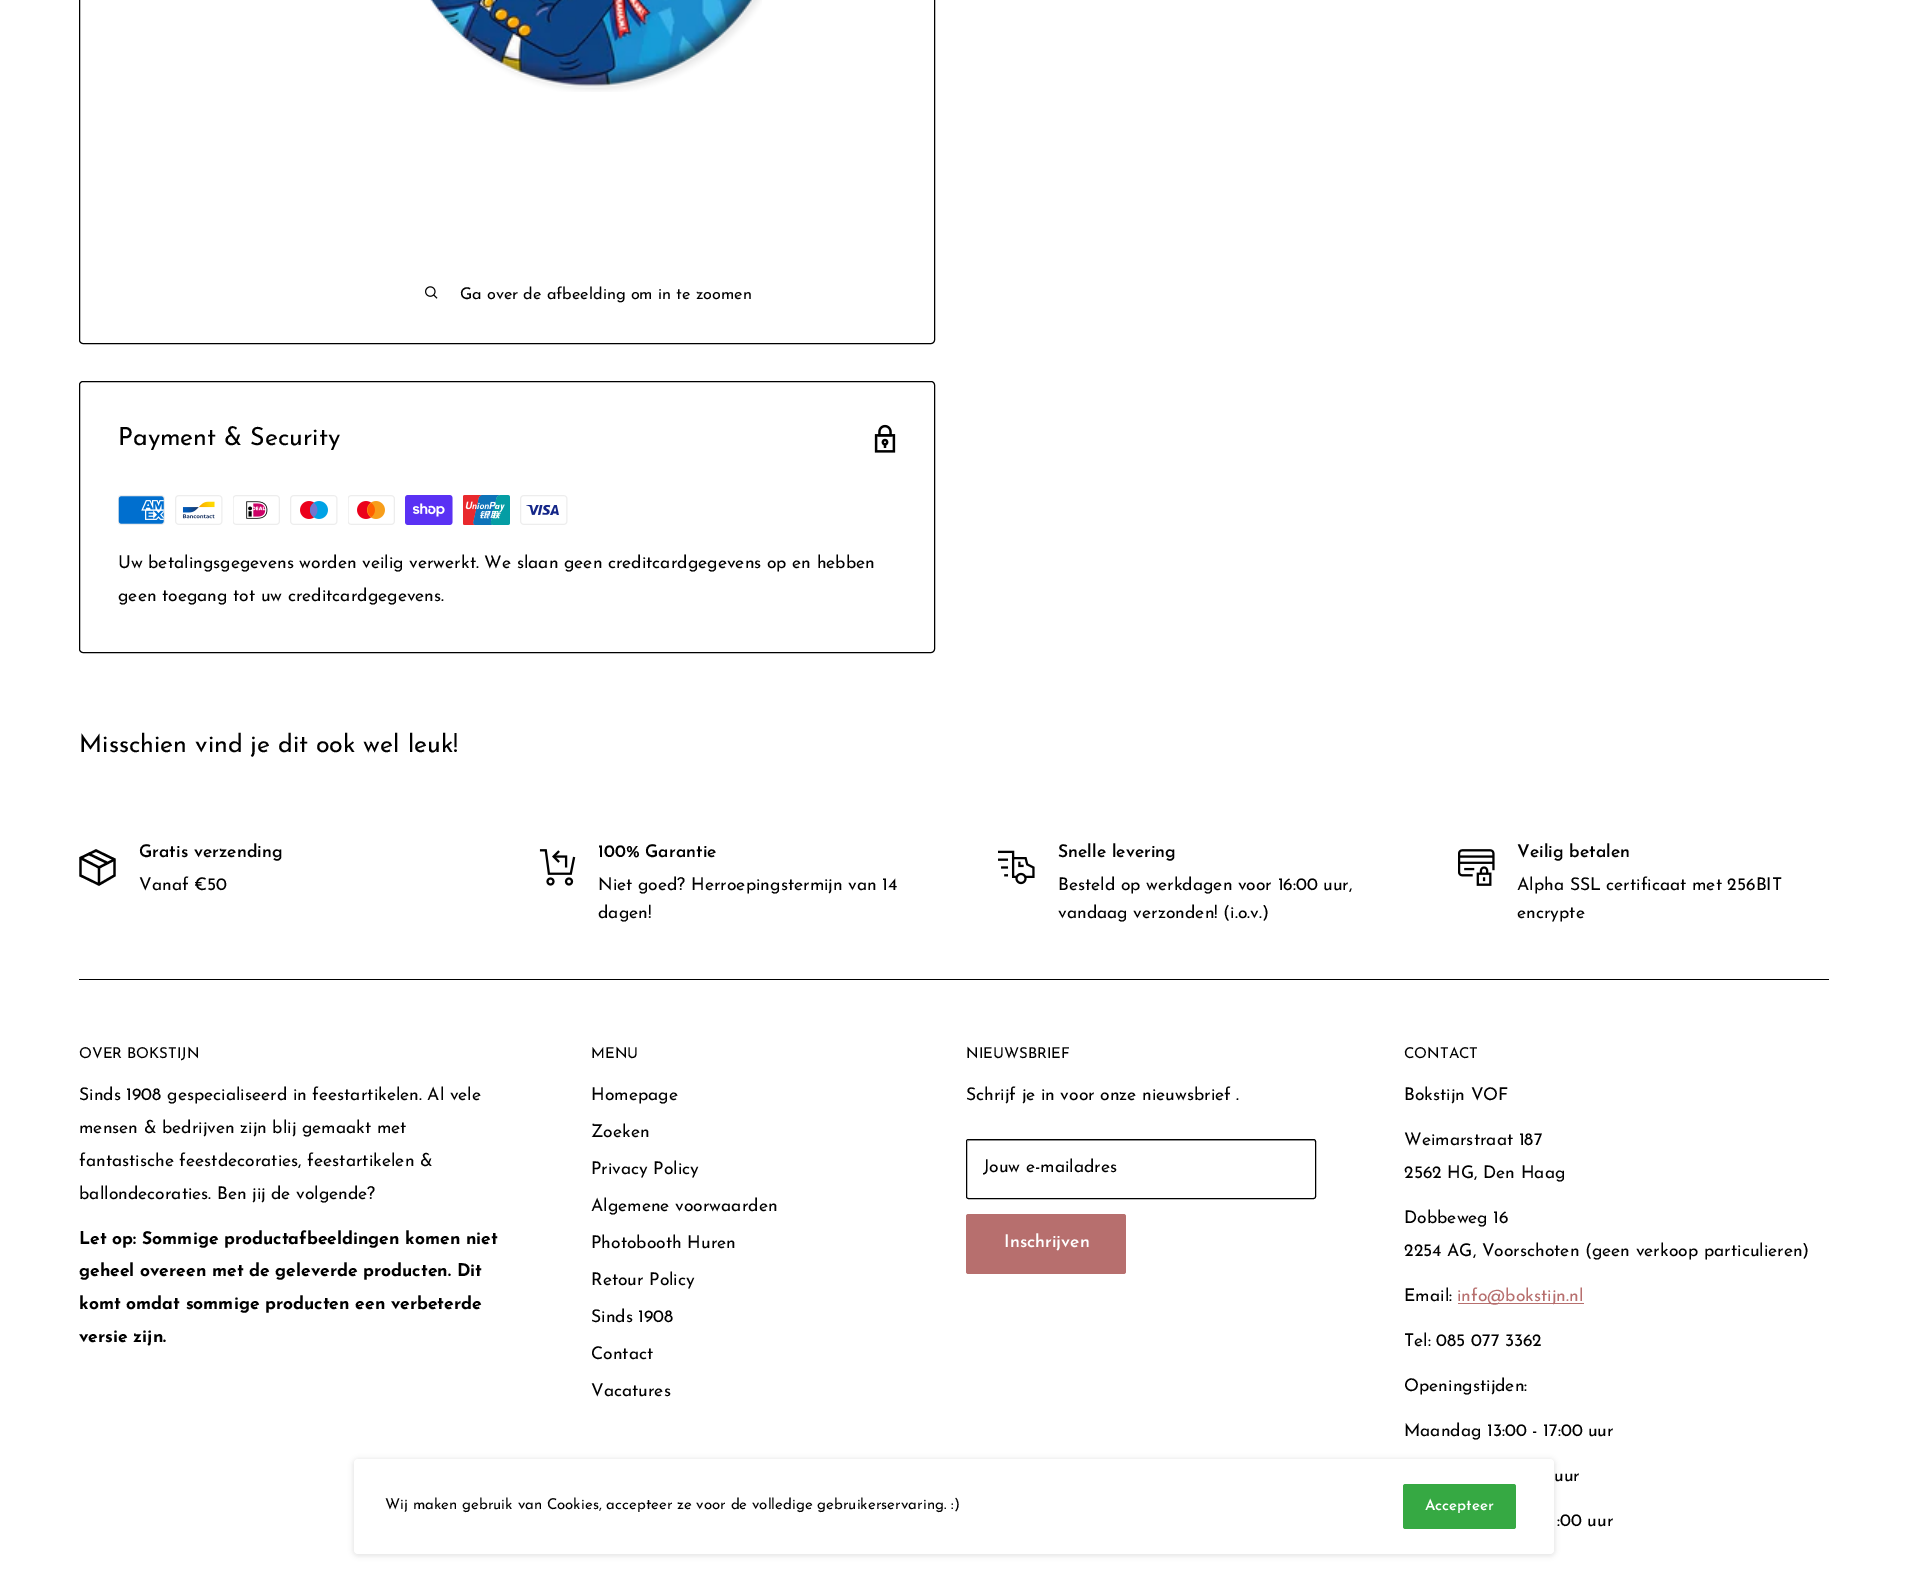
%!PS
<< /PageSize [1907 1584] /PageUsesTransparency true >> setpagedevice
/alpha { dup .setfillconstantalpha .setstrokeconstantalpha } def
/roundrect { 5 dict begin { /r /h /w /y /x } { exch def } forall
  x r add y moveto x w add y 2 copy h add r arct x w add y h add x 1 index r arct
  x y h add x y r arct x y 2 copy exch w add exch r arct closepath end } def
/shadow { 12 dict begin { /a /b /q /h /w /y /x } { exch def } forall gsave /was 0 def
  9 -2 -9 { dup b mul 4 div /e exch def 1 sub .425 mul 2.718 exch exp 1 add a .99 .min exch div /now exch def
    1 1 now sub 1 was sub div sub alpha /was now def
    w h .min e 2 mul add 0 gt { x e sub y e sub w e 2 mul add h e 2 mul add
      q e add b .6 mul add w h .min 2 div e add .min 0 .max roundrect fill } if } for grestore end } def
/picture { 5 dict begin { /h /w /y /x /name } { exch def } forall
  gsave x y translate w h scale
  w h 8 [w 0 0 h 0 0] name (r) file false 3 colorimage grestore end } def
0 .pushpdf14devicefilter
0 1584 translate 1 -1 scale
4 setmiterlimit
1 setgray
0 0 1907 1584 rectfill
0 setgray
79.5 -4.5 855 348 3.5 roundrect stroke
(img1.rgb) 430 0 332 92 picture
(img2.rgb) 425 286 13 13 picture
/JosefinSans-Regular [16.25 0 0 -16.25 0 0] selectfont
460 299 moveto (Ga over de afbeelding om in te zoomen) show
79.5 381.5 855 271 3.5 roundrect stroke
/JosefinSans-Regular [25 0 0 -25 0 0] selectfont
118 445 moveto (Payment & Security) show
(img3.rgb) 874 424 22 29 picture
(img4.rgb) 118 495 47 30 picture
(img5.rgb) 175 495 48 30 picture
(img6.rgb) 233 495 47 30 picture
(img7.rgb) 290 495 48 30 picture
(img8.rgb) 348 495 47 30 picture
(img9.rgb) 405 495 48 30 picture
(img10.rgb) 463 495 47 30 picture
(img11.rgb) 520 495 48 30 picture
/JosefinSans-Regular [17.5 0 0 -17.5 0 0] selectfont
118 568 moveto (Uw betalingsgegevens worden veilig verwerkt. We slaan geen creditcardgegevens op en hebben) show
118 601 moveto (geen toegang tot uw creditcardgegevens.) show
/JosefinSans-Regular [25 0 0 -25 0 0] selectfont
79 752 moveto (Misschien vind je dit ook wel leuk!) show
2.3 setlinewidth
newpath 89 854 moveto 107.5 863 lineto 114.5 859.5 moveto 99 867.5 lineto 80.5 858 lineto 99 867.5 moveto 99 884.5 lineto stroke
2 setlinecap
newpath 114.5 859.5 moveto 114.5 875.5 lineto 99 884.5 lineto 80.5 875.5 lineto 80.5 858 lineto 96 850.5 lineto closepath stroke
/JosefinSans-SemiBold [17.5 0 0 -17.5 0 0] selectfont
139 857 moveto (Gratis verzending) show
/JosefinSans-Regular [17.5 0 0 -17.5 0 0] selectfont
139 890 moveto (Vanaf €50) show
(img12.rgb) 539 849 37 37 picture
/JosefinSans-SemiBold [17.5 0 0 -17.5 0 0] selectfont
598 857 moveto (100% Garantie) show
/JosefinSans-Regular [17.5 0 0 -17.5 0 0] selectfont
598 890 moveto (Niet goed? Herroepingstermijn van 14) show
598 918 moveto (dagen!) show
(img13.rgb) 998 850 37 35 picture
/JosefinSans-SemiBold [17.5 0 0 -17.5 0 0] selectfont
1058 857 moveto (Snelle levering) show
/JosefinSans-Regular [17.5 0 0 -17.5 0 0] selectfont
1058 890 moveto (Besteld op werkdagen voor 16:00 uur,) show
1058 918 moveto (vandaag verzonden! \(i.o.v.\)) show
(img14.rgb) 1458 849 37 37 picture
/JosefinSans-SemiBold [17.5 0 0 -17.5 0 0] selectfont
1517 857 moveto (Veilig betalen) show
/JosefinSans-Regular [17.5 0 0 -17.5 0 0] selectfont
1517 890 moveto (Alpha SSL certificaat met 256BIT) show
1517 918 moveto (encrypte) show
79 979 1750 1 rectfill
/JosefinSans-Regular [15 0 0 -15 0 0] selectfont
79 1058 moveto (OVER BOKSTIJN) show
/JosefinSans-Regular [17.5 0 0 -17.5 0 0] selectfont
79 1100 moveto (Sinds 1908 gespecialiseerd in feestartikelen. Al vele) show
79 1133 moveto (mensen & bedrijven zijn blij gemaakt met) show
79 1166 moveto (fantastische feestdecoraties, feestartikelen &) show
79 1199 moveto (ballondecoraties. Ben jij de volgende?) show
/JosefinSans-Bold [17.5 0 0 -17.5 0 0] selectfont
79 1244 moveto (Let op: Sommige productafbeeldingen komen niet) show
79 1276 moveto (geheel overeen met de geleverde producten. Dit) show
79 1309 moveto (komt omdat sommige producten een verbeterde) show
79 1342 moveto (versie zijn.) show
/JosefinSans-Regular [15 0 0 -15 0 0] selectfont
591 1058 moveto (MENU) show
/JosefinSans-Regular [17.5 0 0 -17.5 0 0] selectfont
591 1100 moveto (Homepage) show
591 1137 moveto (Zoeken) show
591 1174 moveto (Privacy Policy) show
591 1211 moveto (Algemene voorwaarden) show
591 1248 moveto (Photobooth Huren) show
591 1285 moveto (Retour Policy) show
591 1322 moveto (Sinds 1908) show
591 1359 moveto (Contact) show
591 1396 moveto (Vacatures) show
/JosefinSans-Regular [15 0 0 -15 0 0] selectfont
966 1058 moveto (NIEUWSBRIEF) show
/JosefinSans-Regular [17.5 0 0 -17.5 0 0] selectfont
966 1100 moveto (Schrijf je in voor onze nieuwsbrief .) show
0.749 setgray
newpath 969 1141 moveto 1314 1141 lineto 1315 1142 lineto 1315 1141 lineto 1314 1140 lineto 968 1140 lineto 968 1142 lineto closepath fill
0 setgray
1 setlinewidth
0 setlinecap
966.5 1139.5 349 59 2 roundrect stroke
983 1172 moveto (Jouw e-mailadres) show
0.718 0.435 0.431 setrgbcolor
966 1214 160 60 2.5 roundrect fill
/JosefinSans-SemiBold [17.5 0 0 -17.5 0 0] selectfont
1 setgray
1004 1247 moveto (Inschrijven) show
/JosefinSans-Regular [15 0 0 -15 0 0] selectfont
0 setgray
1404 1058 moveto (CONTACT) show
/JosefinSans-Regular [17.5 0 0 -17.5 0 0] selectfont
1404 1100 moveto (Bokstijn VOF) show
1404 1145 moveto (Weimarstraat 187) show
1404 1178 moveto (2562 HG, Den Haag) show
1404 1223 moveto (Dobbeweg 16) show
1404 1256 moveto (2254 AG, Voorschoten \(geen verkoop particulieren\)) show
1404 1301 moveto (Email:) show
0.718 0.435 0.431 setrgbcolor
1458 1303 126 1 rectfill
1457 1301 moveto (info@bokstijn.nl) show
0 setgray
1404 1346 moveto (Tel: 085 077 3362) show
1404 1391 moveto (Openingstijden:) show
1404 1436 moveto (Maandag 13:00 - 17:00 uur) show
1554 1481 moveto (uur) show
1557 1526 moveto (:00 uur) show
353 1459 1202 97 5 2.5 0.1 shadow
1 setgray
354 1459 1200 95 4 roundrect fill
/JosefinSans-Regular [15 0 0 -15 0 0] selectfont
0 setgray
385 1509 moveto (Wij maken gebruik van Cookies, accepteer ze voor de volledige gebruikerservaring. :\)) show
0.212 0.663 0.263 setrgbcolor
1403 1484 113 45 2.5 roundrect fill
/JosefinSans-SemiBold [15 0 0 -15 0 0] selectfont
1 setgray
1425 1510 moveto (Accepteer) show
.poppdf14devicefilter showpage
